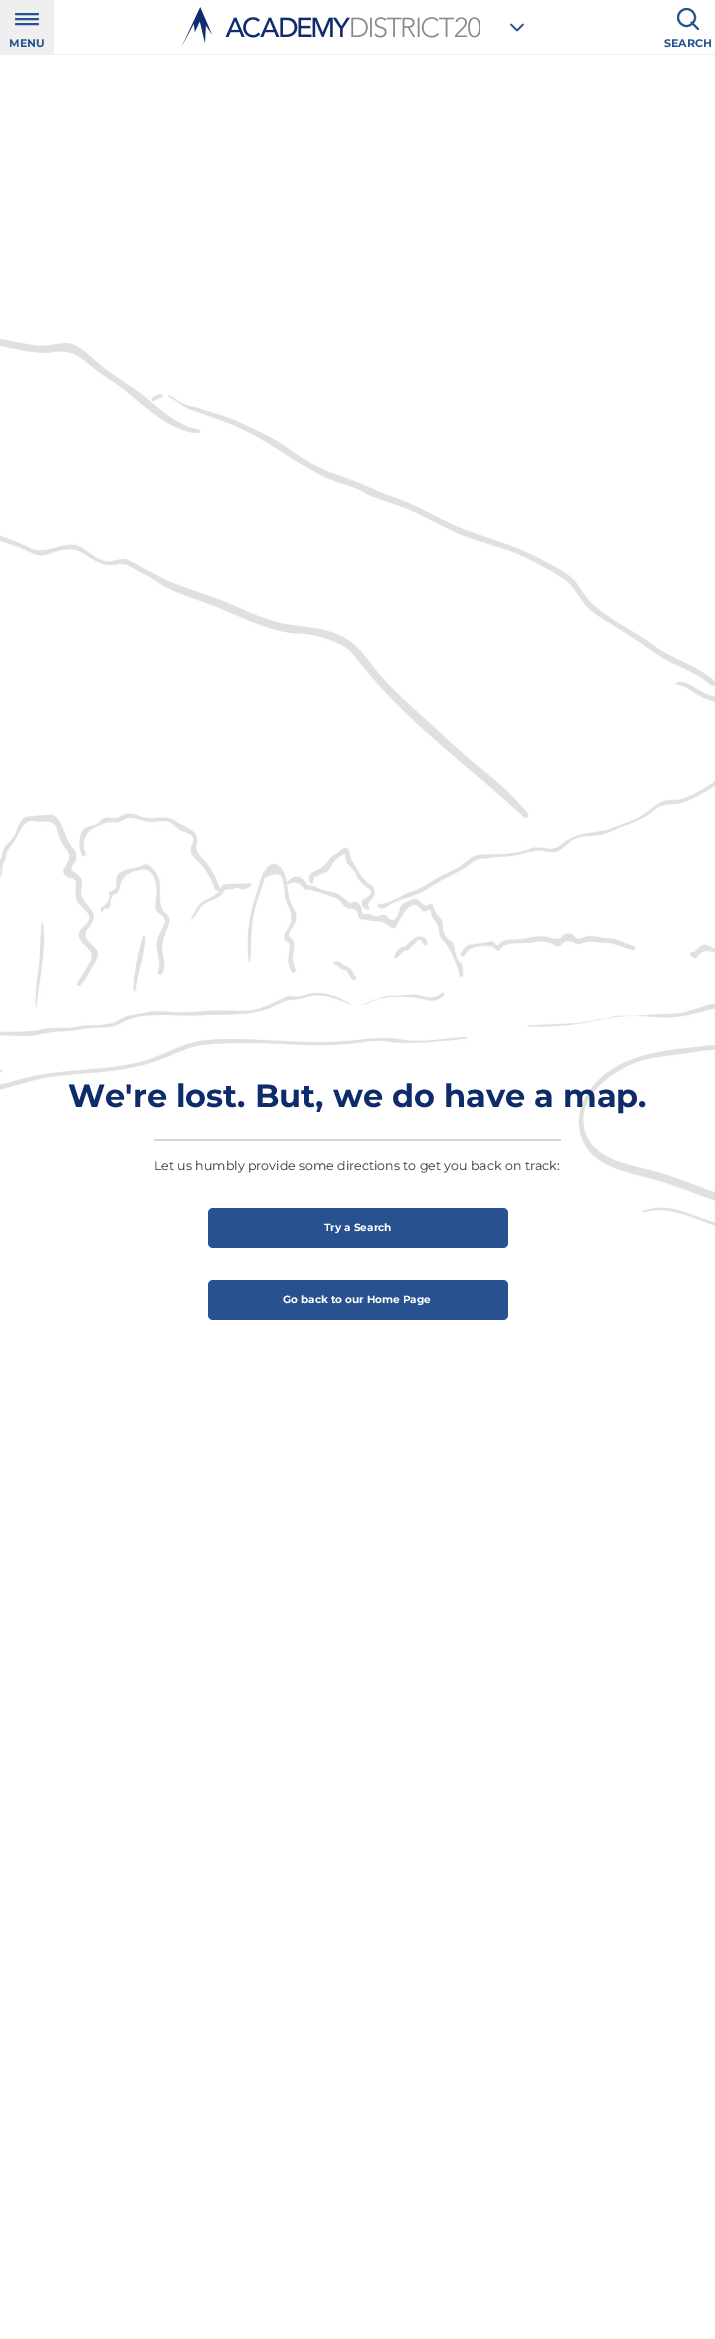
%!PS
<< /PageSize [715 2339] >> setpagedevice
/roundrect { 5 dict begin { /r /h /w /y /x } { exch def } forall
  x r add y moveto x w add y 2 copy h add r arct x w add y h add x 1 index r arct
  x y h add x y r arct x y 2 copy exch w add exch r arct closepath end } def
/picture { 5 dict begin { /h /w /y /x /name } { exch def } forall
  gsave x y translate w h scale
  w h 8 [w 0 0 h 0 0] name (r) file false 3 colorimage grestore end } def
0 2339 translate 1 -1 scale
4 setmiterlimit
1 setgray
0 0 715 2339 rectfill
(img1.rgb) 0 338 715 888 picture
0.937 setgray
0 54 715 1 rectfill
0 0 54 54 rectfill
0.157 0.318 0.561 setrgbcolor
2 setlinewidth
1 setlinecap
newpath 16 14 moveto 38 14 lineto 16 19 moveto 38 19 lineto 16 24 moveto 38 24 lineto stroke
/Montserrat-Bold [11 0 0 -11 0 0] selectfont
9 47 moveto (MENU) show
(img2.rgb) 181 7 299 40 picture
1.5 setlinewidth
1 setlinejoin
newpath 523 24.5 moveto 517 30.5 lineto 511 24.5 lineto stroke
2 setlinewidth
0 setlinecap
0 setlinejoin
newpath 686.5 17.5 8.5 0 360 arc closepath stroke
1 setlinecap
newpath 691.5 22.5 moveto 698 29 lineto stroke
664 47 moveto (SEARCH) show
/Montserrat-Bold [32 0 0 -32 0 0] selectfont
0.055 0.173 0.424 setrgbcolor
68 1107 moveto (We're lost. But, we do have a map.) show
0.827 setgray
154 1139 407 2 rectfill
/Montserrat-Regular [12.6 0 0 -12.6 0 0] selectfont
0.2 setgray
154 1170 moveto (Let us humbly provide some directions to get you back on track:) show
0.157 0.318 0.561 setrgbcolor
208 1208 300 40 5 roundrect fill
/Montserrat-Bold [10.5 0 0 -10.5 0 0] selectfont
1 setgray
324 1231 moveto (Try a Search) show
0.157 0.318 0.561 setrgbcolor
208 1280 300 40 5 roundrect fill
1 setgray
283 1303 moveto (Go back to our Home Page) show
showpage
